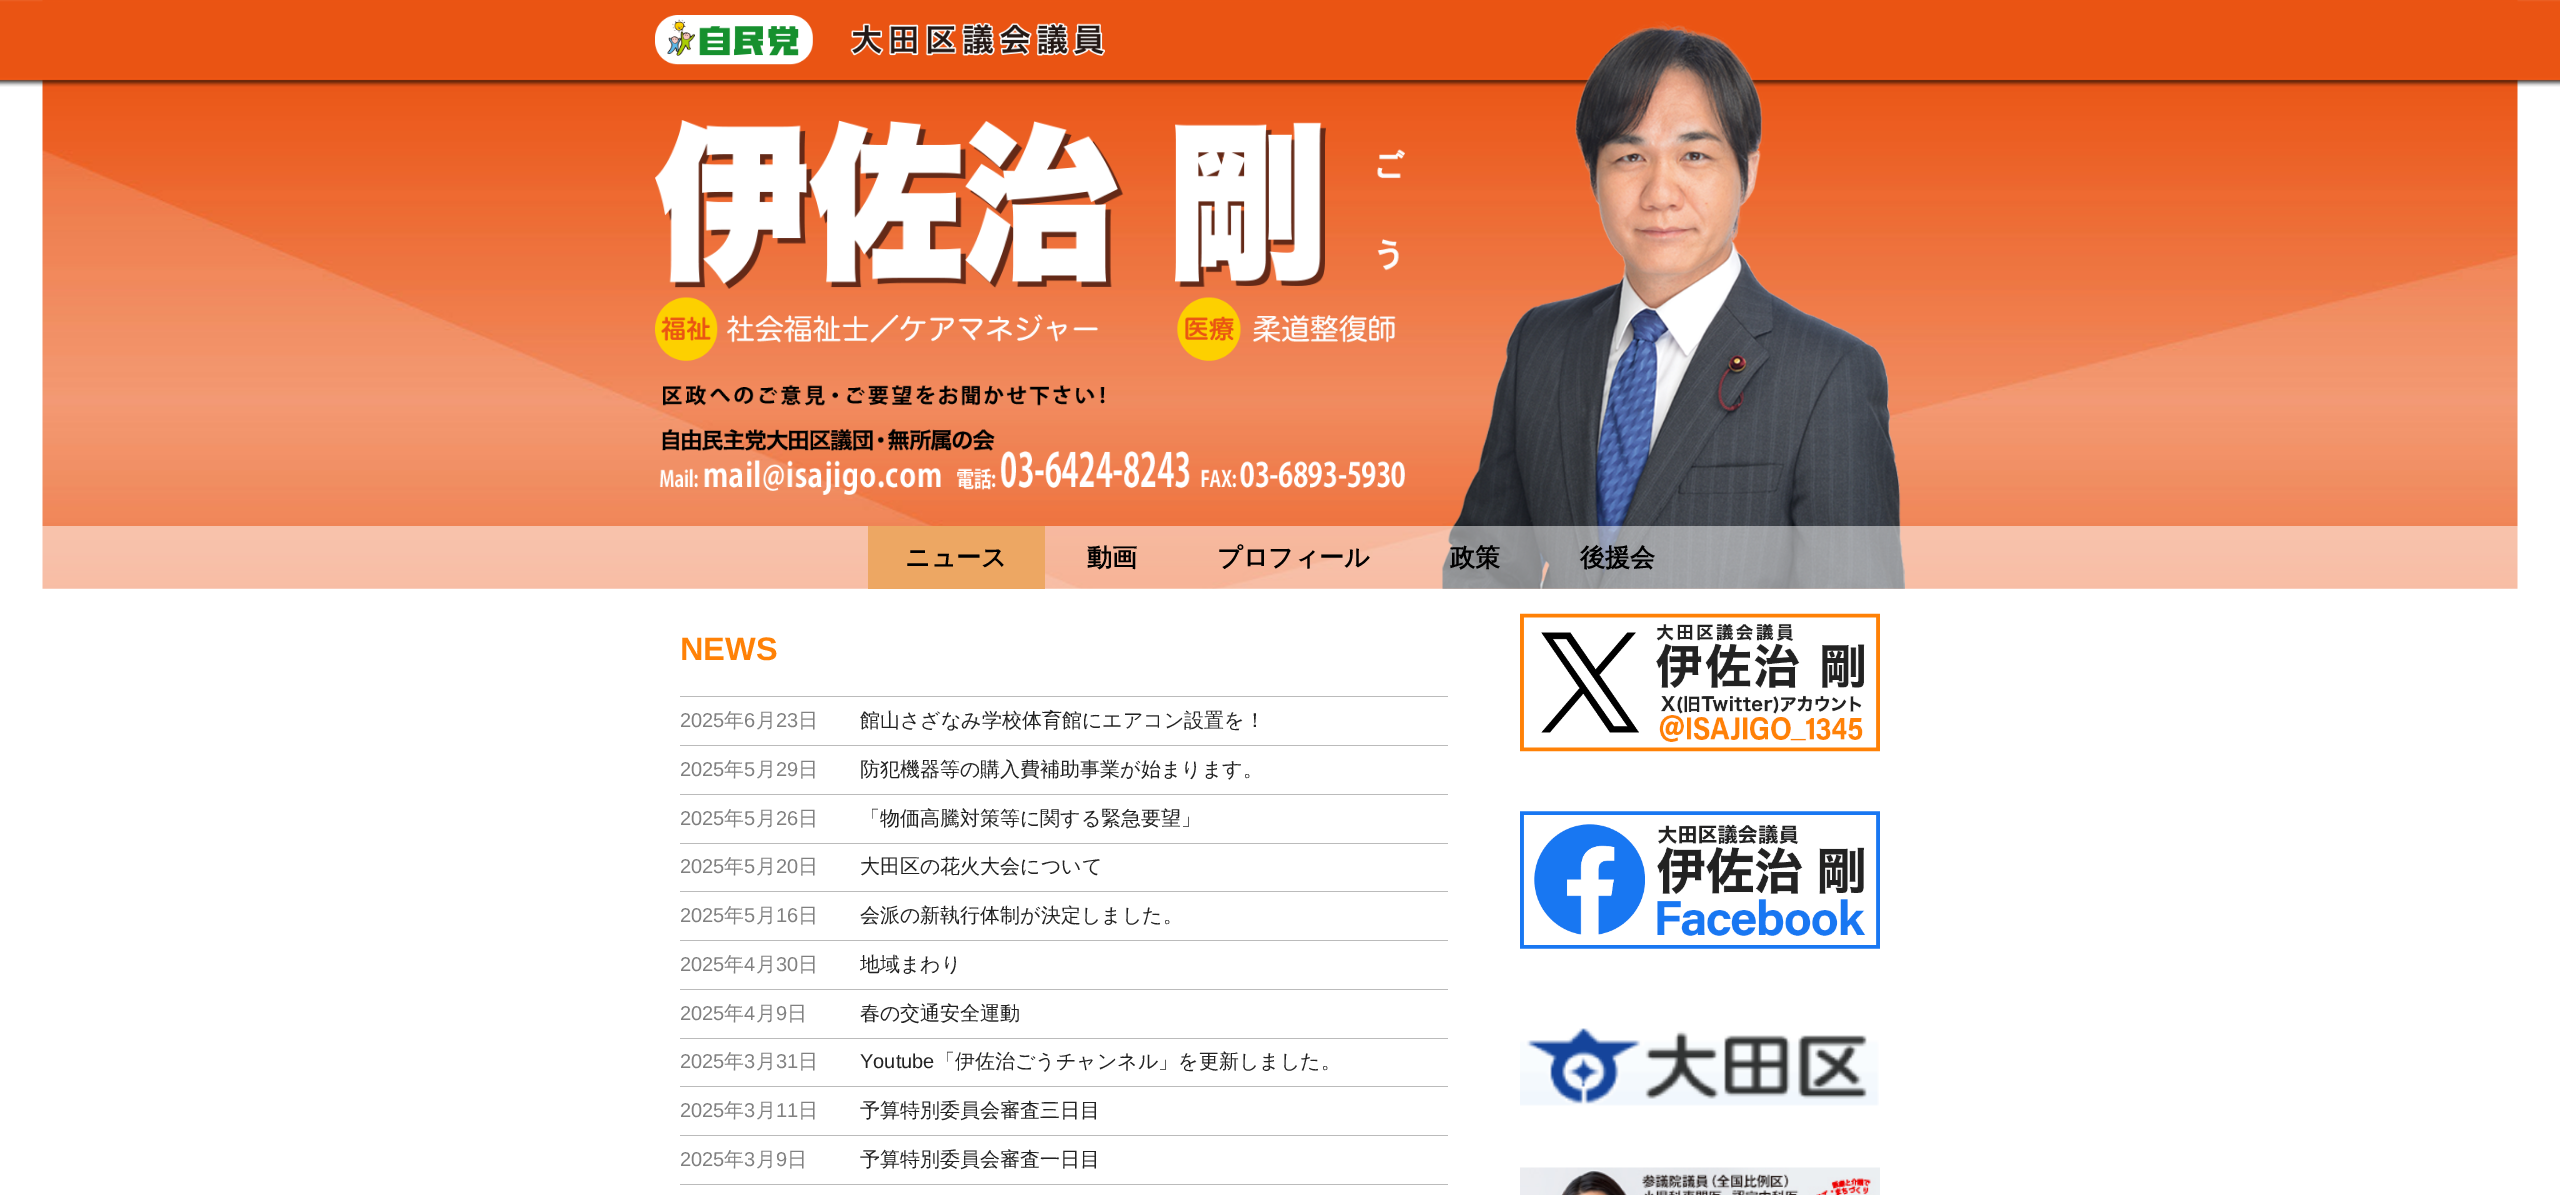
%!PS
<< /PageSize [2560 1195] /PageUsesTransparency true >> setpagedevice
/alpha { dup .setfillconstantalpha .setstrokeconstantalpha } def
/picture { 5 dict begin { /h /w /y /x /name } { exch def } forall
  gsave x y translate w h scale
  w h 8 [w 0 0 h 0 0] name (r) file false 3 colorimage grestore end } def
0 .pushpdf14devicefilter
0 1195 translate 1 -1 scale
4 setmiterlimit
1 setgray
0 0 2560 1195 rectfill
(img1.rgb) 42 0 2476 589 picture
(img2.rgb) 0 0 2560 87 picture
(img3.rgb) 655 15 450 50 picture
(img4.rgb) 655 120 750 169 picture
(img5.rgb) 655 297 750 198 picture
(img6.rgb) 1442 21 463 568 picture
0.5 alpha
42 526 2476 63 rectfill
1 alpha
0.929 0.655 0.388 setrgbcolor
868 526 177 63 rectfill
/WenQuanYiZenHei-Bold [25 0 0 -25 0 0] selectfont
0 setgray
905 566 moveto (ニュース) show
1087 566 moveto (動画) show
1217 566 moveto (プロフィール) show
1450 566 moveto (政策) show
1580 566 moveto (後援会) show
/LiberationSans-Bold [32.5 0 0 -32.5 0 0] selectfont
1 0.506 0.024 setrgbcolor
680 660 moveto (NEWS) show
0.733 setgray
680 696 768 1 rectfill
/LiberationSans-Regular [20 0 0 -20 0 0] selectfont
0.502 setgray
680 727 moveto (2025) show
/WenQuanYiZenHei-Medium [20 0 0 -20 0 0] selectfont
724 727 moveto (年) show
/LiberationSans-Regular [20 0 0 -20 0 0] selectfont
744 727 moveto (6) show
/WenQuanYiZenHei-Medium [20 0 0 -20 0 0] selectfont
756 727 moveto (月) show
/LiberationSans-Regular [20 0 0 -20 0 0] selectfont
776 727 moveto (23) show
/WenQuanYiZenHei-Medium [20 0 0 -20 0 0] selectfont
798 727 moveto (日) show
0.133 setgray
860 727 moveto (館山さざなみ学校体育館にエアコン設置を！) show
0.733 setgray
680 745 768 1 rectfill
/LiberationSans-Regular [20 0 0 -20 0 0] selectfont
0.502 setgray
680 776 moveto (2025) show
/WenQuanYiZenHei-Medium [20 0 0 -20 0 0] selectfont
724 776 moveto (年) show
/LiberationSans-Regular [20 0 0 -20 0 0] selectfont
744 776 moveto (5) show
/WenQuanYiZenHei-Medium [20 0 0 -20 0 0] selectfont
756 776 moveto (月) show
/LiberationSans-Regular [20 0 0 -20 0 0] selectfont
776 776 moveto (29) show
/WenQuanYiZenHei-Medium [20 0 0 -20 0 0] selectfont
798 776 moveto (日) show
0.133 setgray
860 776 moveto (防犯機器等の購入費補助事業が始まります。) show
0.733 setgray
680 794 768 1 rectfill
/LiberationSans-Regular [20 0 0 -20 0 0] selectfont
0.502 setgray
680 825 moveto (2025) show
/WenQuanYiZenHei-Medium [20 0 0 -20 0 0] selectfont
724 825 moveto (年) show
/LiberationSans-Regular [20 0 0 -20 0 0] selectfont
744 825 moveto (5) show
/WenQuanYiZenHei-Medium [20 0 0 -20 0 0] selectfont
756 825 moveto (月) show
/LiberationSans-Regular [20 0 0 -20 0 0] selectfont
776 825 moveto (26) show
/WenQuanYiZenHei-Medium [20 0 0 -20 0 0] selectfont
798 825 moveto (日) show
0.133 setgray
860 825 moveto (「物価高騰対策等に関する緊急要望」) show
0.733 setgray
680 843 768 1 rectfill
/LiberationSans-Regular [20 0 0 -20 0 0] selectfont
0.502 setgray
680 873 moveto (2025) show
/WenQuanYiZenHei-Medium [20 0 0 -20 0 0] selectfont
724 873 moveto (年) show
/LiberationSans-Regular [20 0 0 -20 0 0] selectfont
744 873 moveto (5) show
/WenQuanYiZenHei-Medium [20 0 0 -20 0 0] selectfont
756 873 moveto (月) show
/LiberationSans-Regular [20 0 0 -20 0 0] selectfont
776 873 moveto (20) show
/WenQuanYiZenHei-Medium [20 0 0 -20 0 0] selectfont
798 873 moveto (日) show
0.133 setgray
860 873 moveto (大田区の花火大会について) show
0.733 setgray
680 891 768 1 rectfill
/LiberationSans-Regular [20 0 0 -20 0 0] selectfont
0.502 setgray
680 922 moveto (2025) show
/WenQuanYiZenHei-Medium [20 0 0 -20 0 0] selectfont
724 922 moveto (年) show
/LiberationSans-Regular [20 0 0 -20 0 0] selectfont
744 922 moveto (5) show
/WenQuanYiZenHei-Medium [20 0 0 -20 0 0] selectfont
756 922 moveto (月) show
/LiberationSans-Regular [20 0 0 -20 0 0] selectfont
776 922 moveto (16) show
/WenQuanYiZenHei-Medium [20 0 0 -20 0 0] selectfont
798 922 moveto (日) show
0.133 setgray
860 922 moveto (会派の新執行体制が決定しました。) show
0.733 setgray
680 940 768 1 rectfill
/LiberationSans-Regular [20 0 0 -20 0 0] selectfont
0.502 setgray
680 971 moveto (2025) show
/WenQuanYiZenHei-Medium [20 0 0 -20 0 0] selectfont
724 971 moveto (年) show
/LiberationSans-Regular [20 0 0 -20 0 0] selectfont
744 971 moveto (4) show
/WenQuanYiZenHei-Medium [20 0 0 -20 0 0] selectfont
756 971 moveto (月) show
/LiberationSans-Regular [20 0 0 -20 0 0] selectfont
776 971 moveto (30) show
/WenQuanYiZenHei-Medium [20 0 0 -20 0 0] selectfont
798 971 moveto (日) show
0.133 setgray
860 971 moveto (地域まわり) show
0.733 setgray
680 989 768 1 rectfill
/LiberationSans-Regular [20 0 0 -20 0 0] selectfont
0.502 setgray
680 1020 moveto (2025) show
/WenQuanYiZenHei-Medium [20 0 0 -20 0 0] selectfont
724 1020 moveto (年) show
/LiberationSans-Regular [20 0 0 -20 0 0] selectfont
744 1020 moveto (4) show
/WenQuanYiZenHei-Medium [20 0 0 -20 0 0] selectfont
756 1020 moveto (月) show
/LiberationSans-Regular [20 0 0 -20 0 0] selectfont
776 1020 moveto (9) show
/WenQuanYiZenHei-Medium [20 0 0 -20 0 0] selectfont
787 1020 moveto (日) show
0.133 setgray
860 1020 moveto (春の交通安全運動) show
0.733 setgray
680 1038 768 1 rectfill
/LiberationSans-Regular [20 0 0 -20 0 0] selectfont
0.502 setgray
680 1068 moveto (2025) show
/WenQuanYiZenHei-Medium [20 0 0 -20 0 0] selectfont
724 1068 moveto (年) show
/LiberationSans-Regular [20 0 0 -20 0 0] selectfont
744 1068 moveto (3) show
/WenQuanYiZenHei-Medium [20 0 0 -20 0 0] selectfont
756 1068 moveto (月) show
/LiberationSans-Regular [20 0 0 -20 0 0] selectfont
776 1068 moveto (31) show
/WenQuanYiZenHei-Medium [20 0 0 -20 0 0] selectfont
798 1068 moveto (日) show
/LiberationSans-Regular [20 0 0 -20 0 0] selectfont
0.133 setgray
860 1068 moveto (Youtube) show
/WenQuanYiZenHei-Medium [20 0 0 -20 0 0] selectfont
935 1068 moveto (「伊佐治ごうチャンネル」を更新しました。) show
0.733 setgray
680 1086 768 1 rectfill
/LiberationSans-Regular [20 0 0 -20 0 0] selectfont
0.502 setgray
680 1117 moveto (2025) show
/WenQuanYiZenHei-Medium [20 0 0 -20 0 0] selectfont
724 1117 moveto (年) show
/LiberationSans-Regular [20 0 0 -20 0 0] selectfont
744 1117 moveto (3) show
/WenQuanYiZenHei-Medium [20 0 0 -20 0 0] selectfont
756 1117 moveto (月) show
/LiberationSans-Regular [20 0 0 -20 0 0] selectfont
776 1117 moveto (11) show
/WenQuanYiZenHei-Medium [20 0 0 -20 0 0] selectfont
798 1117 moveto (日) show
0.133 setgray
860 1117 moveto (予算特別委員会審査三日目) show
0.733 setgray
680 1135 768 1 rectfill
680 1184 768 1 rectfill
/LiberationSans-Regular [20 0 0 -20 0 0] selectfont
0.502 setgray
680 1166 moveto (2025) show
/WenQuanYiZenHei-Medium [20 0 0 -20 0 0] selectfont
724 1166 moveto (年) show
/LiberationSans-Regular [20 0 0 -20 0 0] selectfont
744 1166 moveto (3) show
/WenQuanYiZenHei-Medium [20 0 0 -20 0 0] selectfont
756 1166 moveto (月) show
/LiberationSans-Regular [20 0 0 -20 0 0] selectfont
776 1166 moveto (9) show
/WenQuanYiZenHei-Medium [20 0 0 -20 0 0] selectfont
787 1166 moveto (日) show
0.133 setgray
860 1166 moveto (予算特別委員会審査一日目) show
(img7.rgb) 1520 613 360 139 picture
(img8.rgb) 1520 811 360 138 picture
(img9.rgb) 1520 1028 359 78 picture
(img10.rgb) 1520 1167 360 28 picture
.poppdf14devicefilter showpage
